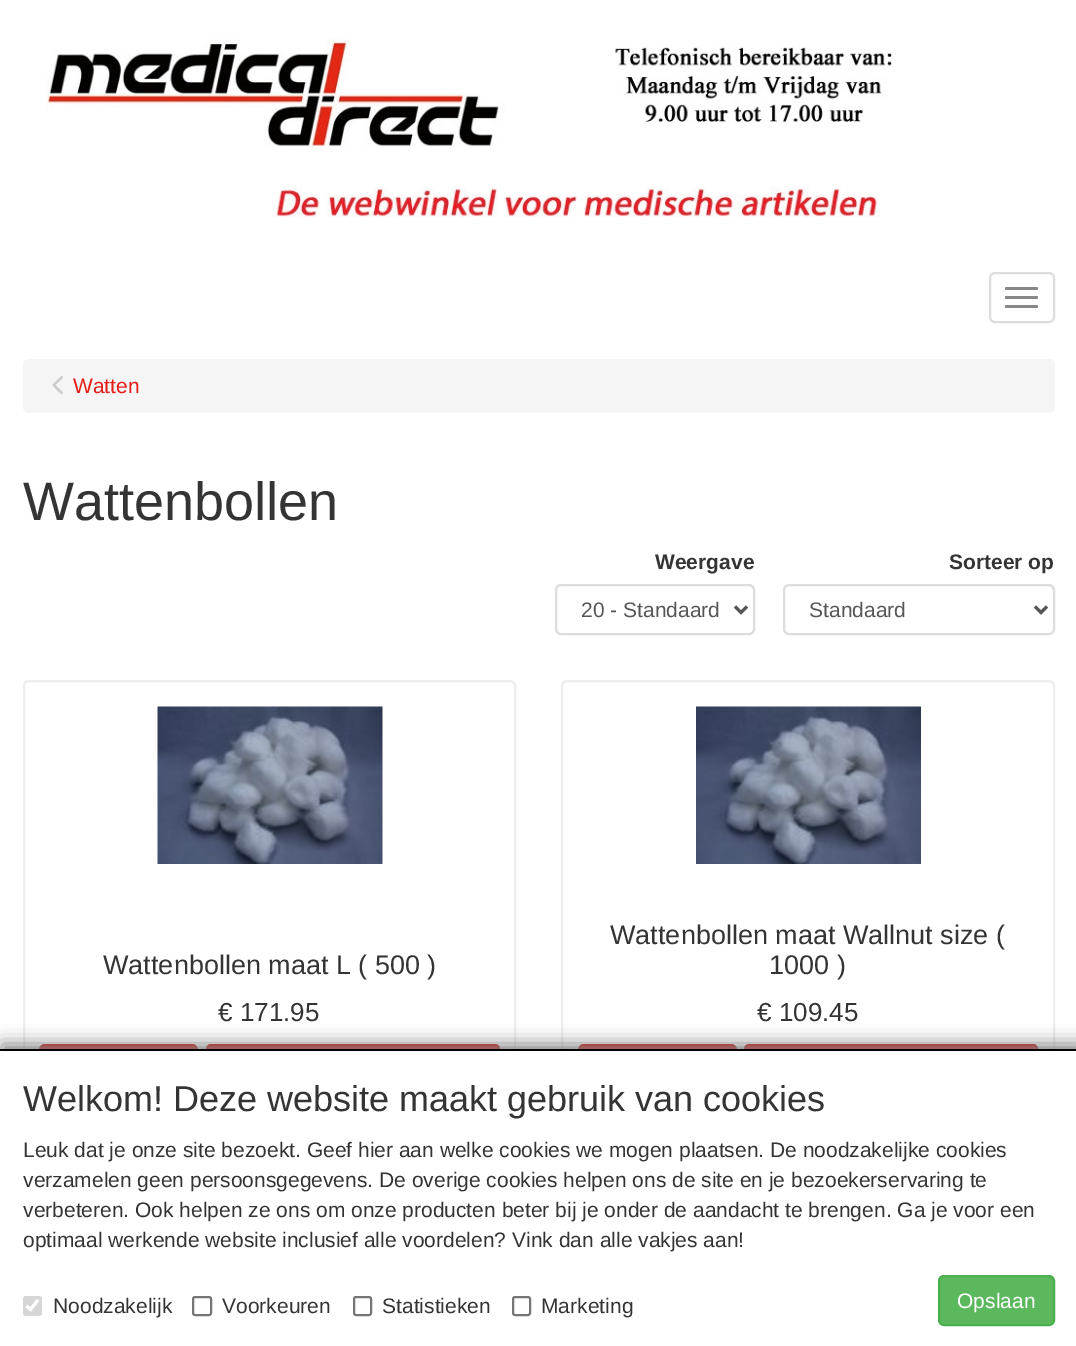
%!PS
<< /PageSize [1076 1346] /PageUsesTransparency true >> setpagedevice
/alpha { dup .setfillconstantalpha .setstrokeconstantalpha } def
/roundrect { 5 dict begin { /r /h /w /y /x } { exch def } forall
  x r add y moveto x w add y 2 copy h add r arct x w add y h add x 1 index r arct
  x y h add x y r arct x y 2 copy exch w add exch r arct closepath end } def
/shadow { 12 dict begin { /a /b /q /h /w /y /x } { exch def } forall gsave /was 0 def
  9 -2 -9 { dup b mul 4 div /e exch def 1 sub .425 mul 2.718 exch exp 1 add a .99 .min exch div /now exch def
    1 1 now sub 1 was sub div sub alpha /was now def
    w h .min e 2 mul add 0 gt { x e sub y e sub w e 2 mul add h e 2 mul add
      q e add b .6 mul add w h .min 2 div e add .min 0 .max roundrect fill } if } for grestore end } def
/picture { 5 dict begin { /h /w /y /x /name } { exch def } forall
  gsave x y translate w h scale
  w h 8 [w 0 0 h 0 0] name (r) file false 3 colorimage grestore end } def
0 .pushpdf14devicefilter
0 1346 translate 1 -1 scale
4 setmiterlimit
1 setgray
0 0 1076 1346 rectfill
(img1.rgb) 46 38 846 180 picture
0.867 setgray
2 setlinewidth
990 273 64 49 5 roundrect stroke
0.533 setgray
1005 287 33 3 1.5 roundrect fill
1005 296 33 3 1.5 roundrect fill
1005 305 33 3 1.5 roundrect fill
0.961 setgray
23 359 1032 54 6 roundrect fill
(img2.rgb) 52 376 11 19 picture
/LiberationSans-Regular [21 0 0 -21 0 0] selectfont
0.89 0.11 0.09 setrgbcolor
73 393 moveto (Watten) show
/LiberationSans-Regular [54 0 0 -54 0 0] selectfont
0.204 setgray
23 520 moveto (Wattenbollen) show
/LiberationSans-Bold [21 0 0 -21 0 0] selectfont
655 569 moveto (Weergave) show
0.922 setgray
newpath 561 586 moveto 748 586 lineto 751 586 753 589 753 591 curveto 753 590 lineto 753 587 751 585 748 585 curveto 562 585 lineto 560 585 558 586 557 588 curveto 558 587 560 586 561 586 curveto closepath fill
0.867 setgray
556 585 198 49 5 roundrect stroke
0.337 setgray
3 setlinewidth
newpath 735 606.5 moveto 741 612.5 lineto 747 606.5 lineto stroke
/LiberationSans-Regular [21 0 0 -21 0 0] selectfont
581 617 moveto (20 - Standaard) show
/LiberationSans-Bold [21 0 0 -21 0 0] selectfont
0.204 setgray
949 569 moveto (Sorteer op) show
0.922 setgray
newpath 789 586 moveto 1048 586 lineto 1051 586 1053 589 1053 591 curveto 1053 590 lineto 1053 587 1051 585 1048 585 curveto 790 585 lineto 788 585 786 586 785 588 curveto 786 587 788 586 789 586 curveto closepath fill
0.867 setgray
2 setlinewidth
784 585 270 49 5 roundrect stroke
0.337 setgray
3 setlinewidth
newpath 1035 606.5 moveto 1041 612.5 lineto 1047 606.5 lineto stroke
/LiberationSans-Regular [21 0 0 -21 0 0] selectfont
809 617 moveto (Standaard) show
0.933 setgray
2 setlinewidth
24 681 491 430 5 roundrect stroke
(img3.rgb) 157 706 226 158 picture
/LiberationSans-Regular [27 0 0 -27 0 0] selectfont
0.204 setgray
103 974 moveto (Wattenbollen maat L \( 500 \)) show
/LiberationSans-Regular [26 0 0 -26 0 0] selectfont
218 1021 moveto (€ 171.95) show
0.89 0.11 0.09 setrgbcolor
40 1045 157 49 5 roundrect gsave fill grestore
0.8 0.098 0.082 setrgbcolor
stroke
0.89 0.11 0.09 setrgbcolor
207 1045 292 49 4 roundrect gsave fill grestore
0.8 0.098 0.082 setrgbcolor
stroke
0.933 setgray
562 681 492 430 5 roundrect stroke
(img4.rgb) 696 706 225 158 picture
/LiberationSans-Regular [27 0 0 -27 0 0] selectfont
0.204 setgray
610 944 moveto (Wattenbollen maat Wallnut size \() show
769 974 moveto (1000 \)) show
/LiberationSans-Regular [26 0 0 -26 0 0] selectfont
757 1021 moveto (€ 109.45) show
0.89 0.11 0.09 setrgbcolor
579 1045 157 49 5 roundrect gsave fill grestore
0.8 0.098 0.082 setrgbcolor
stroke
0.89 0.11 0.09 setrgbcolor
745 1045 292 49 4 roundrect gsave fill grestore
0.8 0.098 0.082 setrgbcolor
stroke
0.502 setgray
2 1044 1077 299 0 9 1 shadow
1 setgray
0 1051 1076 295 rectfill
0 setgray
0 1049 1076 2 rectfill
/LiberationSans-Regular [36 0 0 -36 0 0] selectfont
0.204 setgray
23 1111 moveto (Welkom! Deze website maakt gebruik van cookies) show
/LiberationSans-Regular [21 0 0 -21 0 0] selectfont
23 1157 moveto (Leuk dat je onze site bezoekt. Geef hier aan welke cookies we mogen plaatsen. De noodzakelijke cookies) show
23 1187 moveto (verzamelen geen persoonsgegevens. De overige cookies helpen ons de site en je bezoekerservaring te) show
23 1217 moveto (verbeteren. Ook helpen ze ons om onze producten beter bij je onder de aandacht te brengen. Ga je voor een) show
23 1247 moveto (optimaal werkende website inclusief alle voordelen? Vink dan alle vakjes aan!) show
0.839 setgray
23 1296 19 20 3 roundrect fill
1 setgray
3.1 setlinewidth
newpath 26.5 1306 moveto 30.5 1309.5 lineto 38 1300 lineto stroke
0.204 setgray
53 1313 moveto (Noodzakelijk) show
0.463 setgray
2 setlinewidth
193 1297 18 18 2 roundrect stroke
0.204 setgray
222 1313 moveto (Voorkeuren) show
0.463 setgray
354 1297 17 18 2 roundrect stroke
0.204 setgray
382 1313 moveto (Statistieken) show
0.463 setgray
513 1297 17 18 2 roundrect stroke
0.204 setgray
541 1313 moveto (Marketing) show
0.361 0.722 0.361 setrgbcolor
939 1276 115 49 5 roundrect gsave fill grestore
0.298 0.682 0.298 setrgbcolor
stroke
0.996 setgray
957 1308 moveto (Opslaan) show
.poppdf14devicefilter showpage
